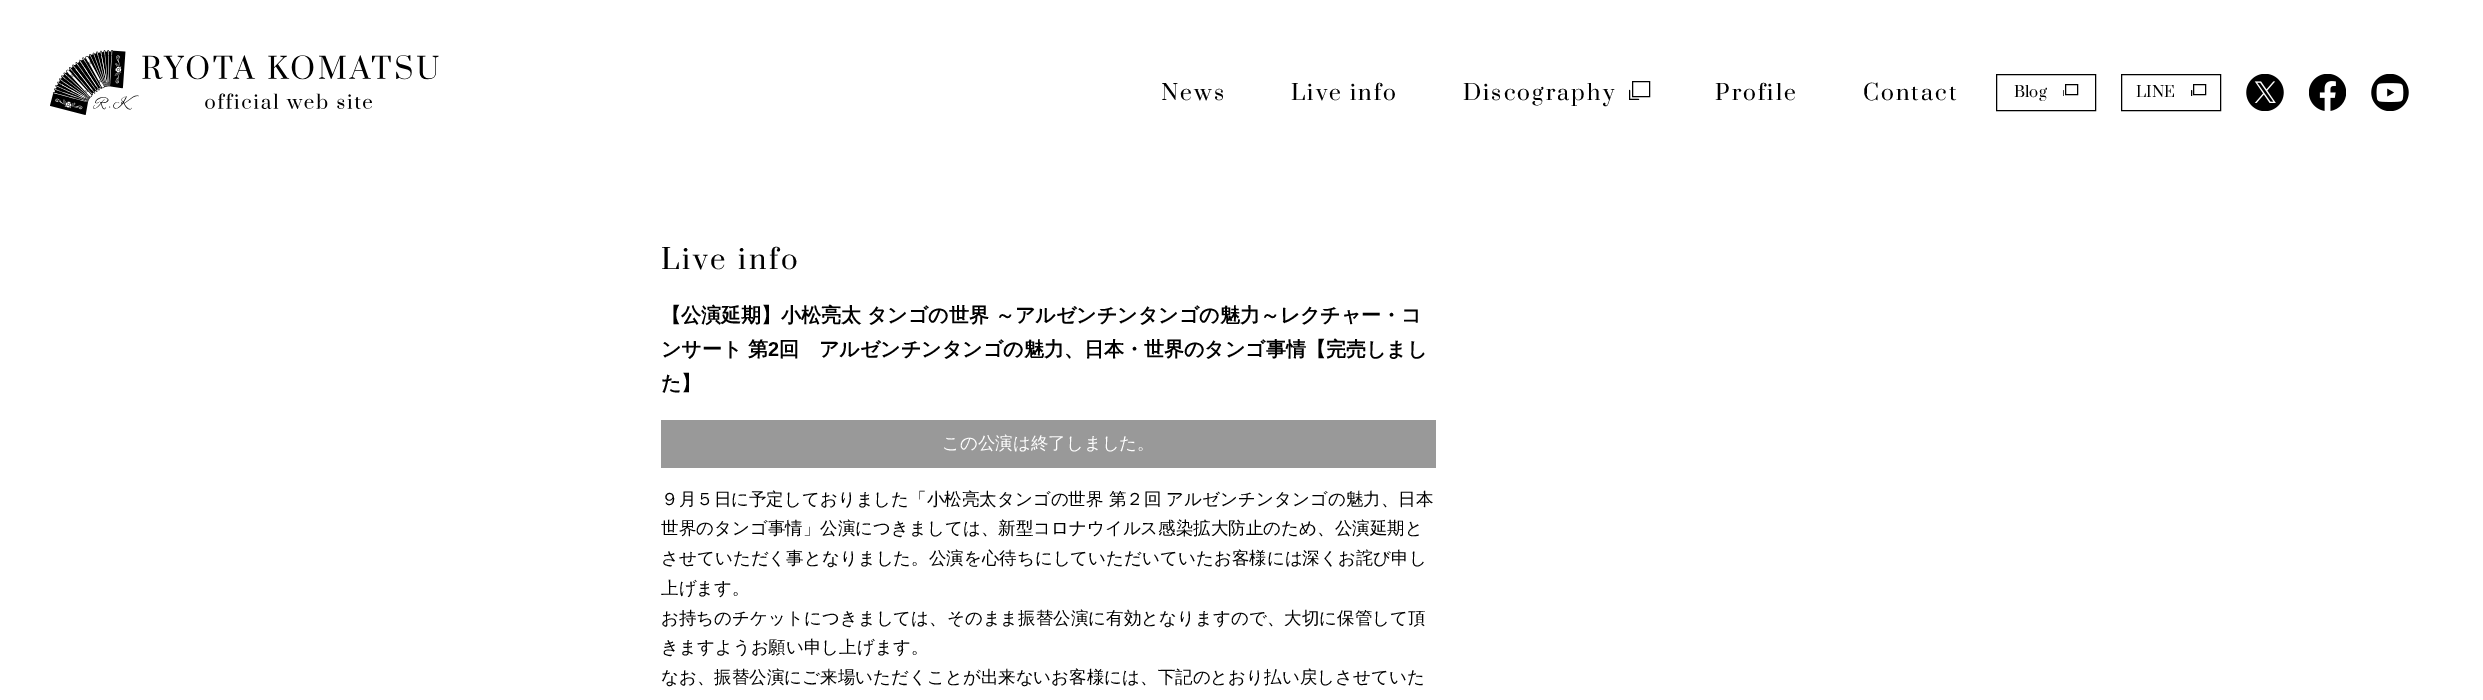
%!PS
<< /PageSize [2483 700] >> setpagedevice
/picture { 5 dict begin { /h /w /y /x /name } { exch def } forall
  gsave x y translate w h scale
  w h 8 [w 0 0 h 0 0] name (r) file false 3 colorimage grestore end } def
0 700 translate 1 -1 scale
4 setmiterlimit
1 setgray
0 0 2483 700 rectfill
(img1.rgb) 50 50 389 65 picture
/Prata-Regular [21.25 0 0 -21.25 0 0] selectfont
0 setgray
1161 100 moveto 2.1 0 (News) ashow
1291 100 moveto 2.1 0 (Live info) ashow
1463 100 moveto 2.1 0 (Discography) ashow
1632.5 81.5 17 15 rectstroke
gsave
1629 81 21 19 rectclip
1.2 setlinewidth
1 setlinecap
1 setlinejoin
newpath 1629.5 90.5 moveto 1629.5 99.5 lineto 1638.5 99.5 lineto stroke
grestore
1715 100 moveto 2.1 0 (Profile) ashow
1863 100 moveto 2.1 0 (Contact) ashow
1996.5 74.5 99 36 rectstroke
/Prata-Regular [15 0 0 -15 0 0] selectfont
2014 97 moveto (Blog) show
gsave
2063 84 15 12 rectclip
0.9 setlinewidth
1 setlinecap
1 setlinejoin
newpath 2063 90.5 moveto 2063 97 lineto 2069.5 97 lineto stroke
grestore
2065.5 84.5 12 10 rectstroke
2121.5 74.5 99 36 rectstroke
2136 97 moveto (LINE) show
gsave
2191 84 15 12 rectclip
0.9 setlinewidth
1 setlinecap
1 setlinejoin
newpath 2191.5 90.5 moveto 2191.5 97 lineto 2198 97 lineto stroke
grestore
2193.5 84.5 12 10 rectstroke
(img2.rgb) 2246 74 38 37 picture
(img3.rgb) 2309 74 37 37 picture
(img4.rgb) 2371 74 38 37 picture
/Prata-Regular [27.5 0 0 -27.5 0 0] selectfont
661 269 moveto 2.75 0 (Live info) ashow
/WenQuanYiZenHei-Bold [20 0 0 -20 0 0] selectfont
661 322 moveto (【公演延期】小松亮太 タンゴの世界 ～アルゼンチンタンゴの魅力～レクチャー・コ) show
661 356 moveto (ンサート 第) show
/LiberationSans-Bold [20 0 0 -20 0 0] selectfont
768 356 moveto (2) show
/WenQuanYiZenHei-Bold [20 0 0 -20 0 0] selectfont
779 356 moveto (回　アルゼンチンタンゴの魅力、日本・世界のタンゴ事情【完売しまし) show
661 390 moveto (た】) show
0.6 setgray
661 420 775 48 rectfill
/WenQuanYiZenHei-Medium [17.5 0 0 -17.5 0 0] selectfont
1 setgray
942 449 moveto (この公演は終了しました。) show
0 setgray
661 505 moveto (９月５日に予定しておりました「小松亮太タンゴの世界 第２回 アルゼンチンタンゴの魅力、日本) show
661 534 moveto (世界のタンゴ事情」公演につきましては、新型コロナウイルス感染拡大防止のため、公演延期と) show
661 564 moveto (させていただく事となりました。公演を心待ちにしていただいていたお客様には深くお詫び申し) show
661 594 moveto (上げます。) show
661 624 moveto (お持ちのチケットにつきましては、そのまま振替公演に有効となりますので、大切に保管して頂) show
661 653 moveto (きますようお願い申し上げます。) show
661 683 moveto (なお、振替公演にご来場いただくことが出来ないお客様には、下記のとおり払い戻しさせていた) show
showpage
